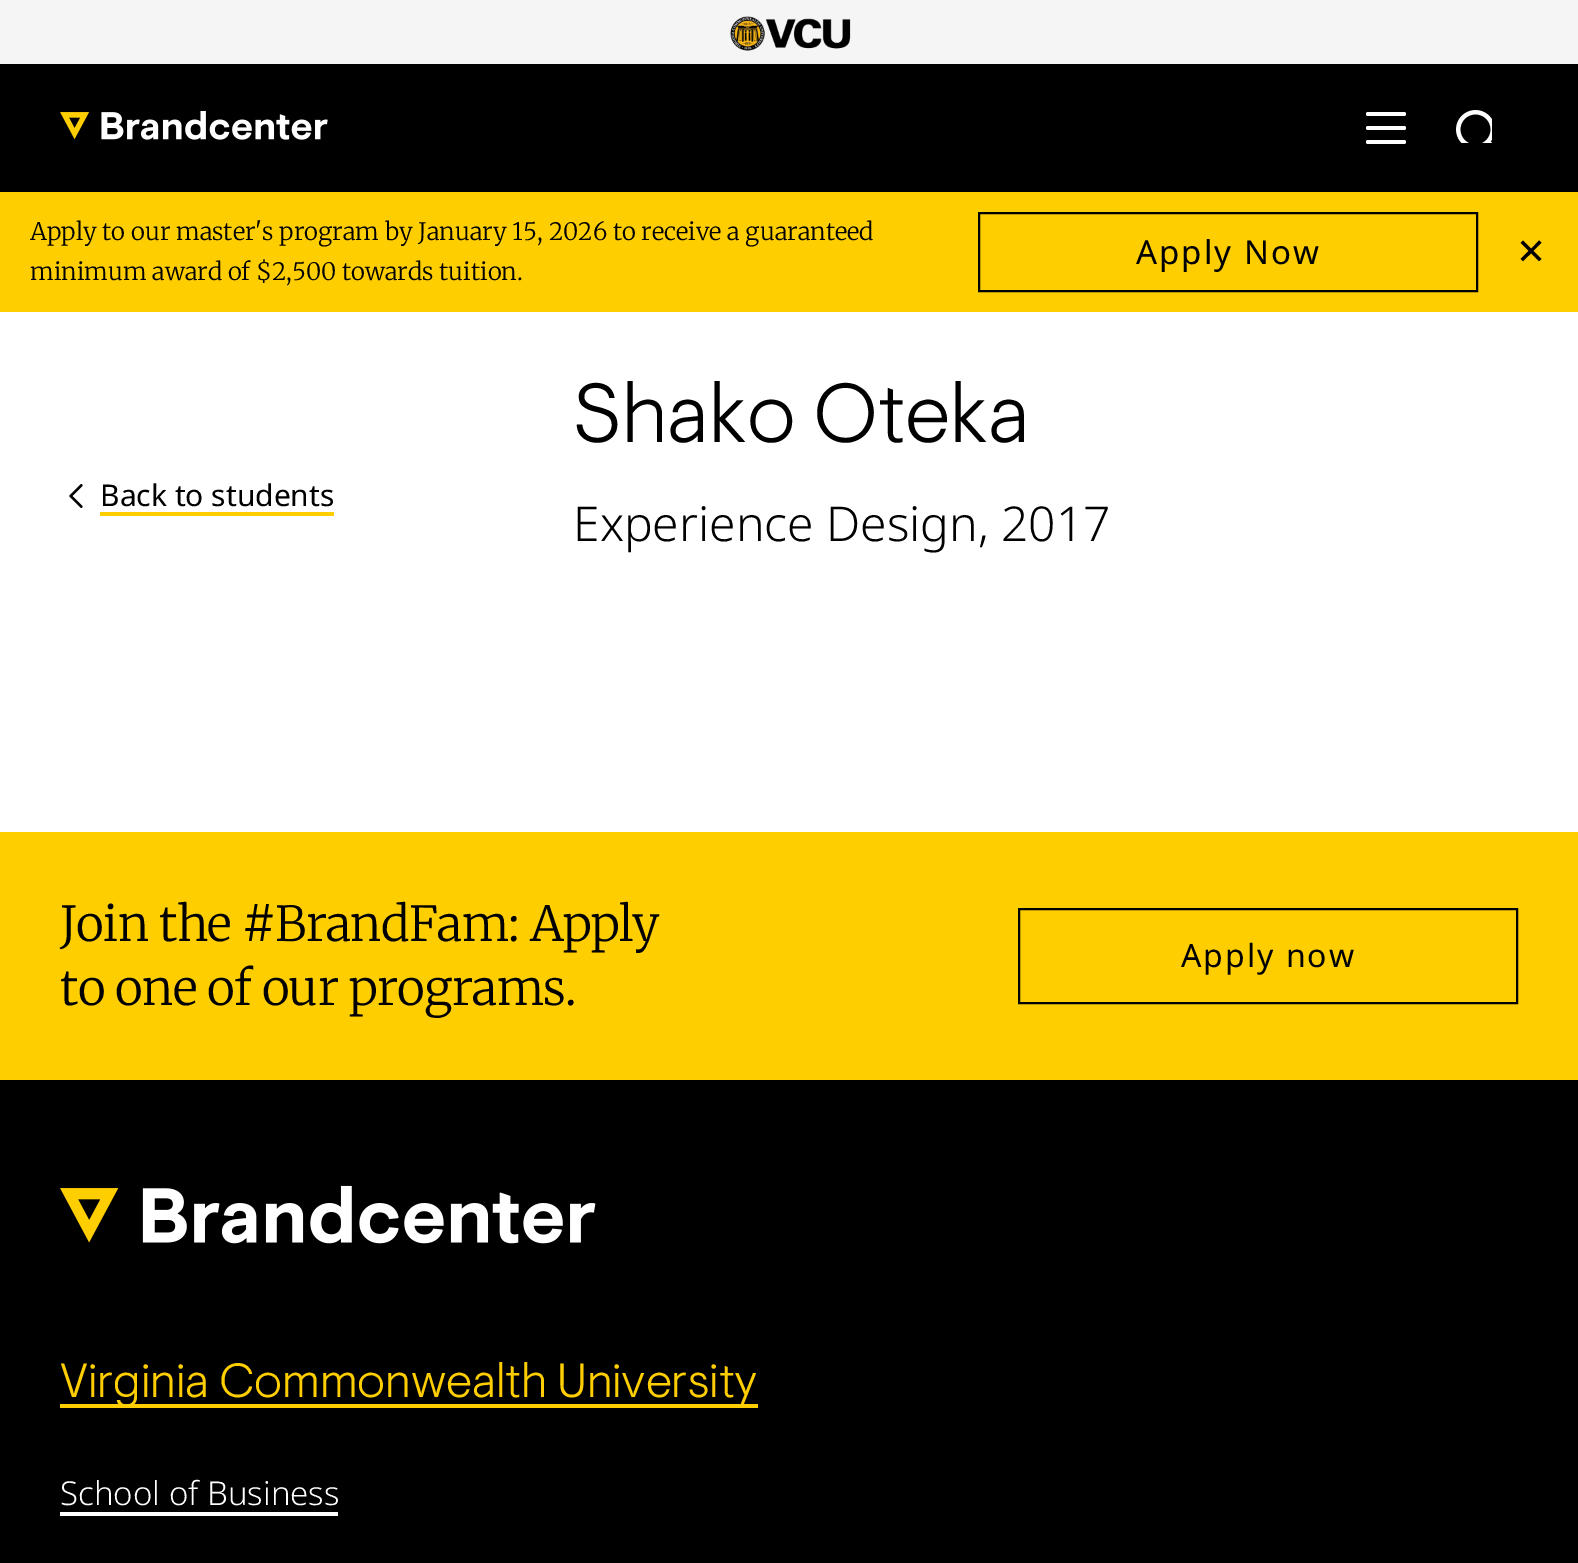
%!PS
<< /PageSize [1578 1563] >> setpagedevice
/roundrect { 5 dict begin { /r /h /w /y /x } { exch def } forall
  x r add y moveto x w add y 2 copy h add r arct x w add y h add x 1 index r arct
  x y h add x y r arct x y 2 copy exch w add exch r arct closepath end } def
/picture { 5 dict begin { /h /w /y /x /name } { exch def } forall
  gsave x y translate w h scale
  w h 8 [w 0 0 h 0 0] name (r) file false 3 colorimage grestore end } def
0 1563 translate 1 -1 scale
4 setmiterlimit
1 setgray
0 0 1578 1563 rectfill
0.961 setgray
0 0 1578 64 rectfill
(img1.rgb) 730 16 121 35 picture
0 setgray
0 64 1578 128 rectfill
(img2.rgb) 60 111 268 29 picture
1 setgray
1366 112 40 4 2 roundrect fill
1366 126 40 4 2 roundrect fill
1366 140 40 4 2 roundrect fill
(img3.rgb) 1456 110 36 33 picture
1 0.808 0 setrgbcolor
0 192 1578 120 rectfill
/Merriweather-Light [24 0 0 -24 0 0] selectfont
0 setgray
30 240 moveto (Apply to our master's program by January 15, 2026 to receive a guaranteed) show
30 280 moveto (minimum award of $2,500 towards tuition.) show
2 setlinewidth
979 213 498 78 rectstroke
/NotoSans-Regular [33 0 0 -33 0 0] selectfont
1136 264 moveto 2 0 (Apply Now) ashow
/DejaVuSans-Regular [36 0 0 -36 0 0] selectfont
1516 264 moveto (✕) show
(img4.rgb) 69 484 14 24 picture
/NotoSans-Regular [30 0 0 -30 0 0] selectfont
100 506 moveto (Back to students) show
1 0.808 0 setrgbcolor
100 512 234 4 rectfill
/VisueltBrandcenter-Light [83.5 0 0 -83.5 0 0] selectfont
0 setgray
573 442 moveto (Shako Oteka) show
/NotoSans-Light [48 0 0 -48 0 0] selectfont
573 541 moveto (Experience Design, 2017) show
1 0.808 0 setrgbcolor
0 832 1578 248 rectfill
/Merriweather-Light [48 0 0 -48 0 0] selectfont
0 setgray
60 941 moveto -0.7 0 (Join the #BrandFam: Apply) ashow
60 1005 moveto -0.7 0 (to one of our programs.) ashow
1019 909 498 94 rectstroke
/NotoSans-Regular [32 0 0 -32 0 0] selectfont
1181 967 moveto 2 0 (Apply now) ashow
0 1080 1578 483 rectfill
(img5.rgb) 60 1185 536 59 picture
1 0.808 0 setrgbcolor
60 1404 698 4 rectfill
/VisueltBrandcenter-Light [48 0 0 -48 0 0] selectfont
60 1397 moveto (Virginia Commonwealth University) show
/NotoSans-Light [33 0 0 -33 0 0] selectfont
1 setgray
60 1505 moveto (School of Business) show
60 1512 278 4 rectfill
showpage
